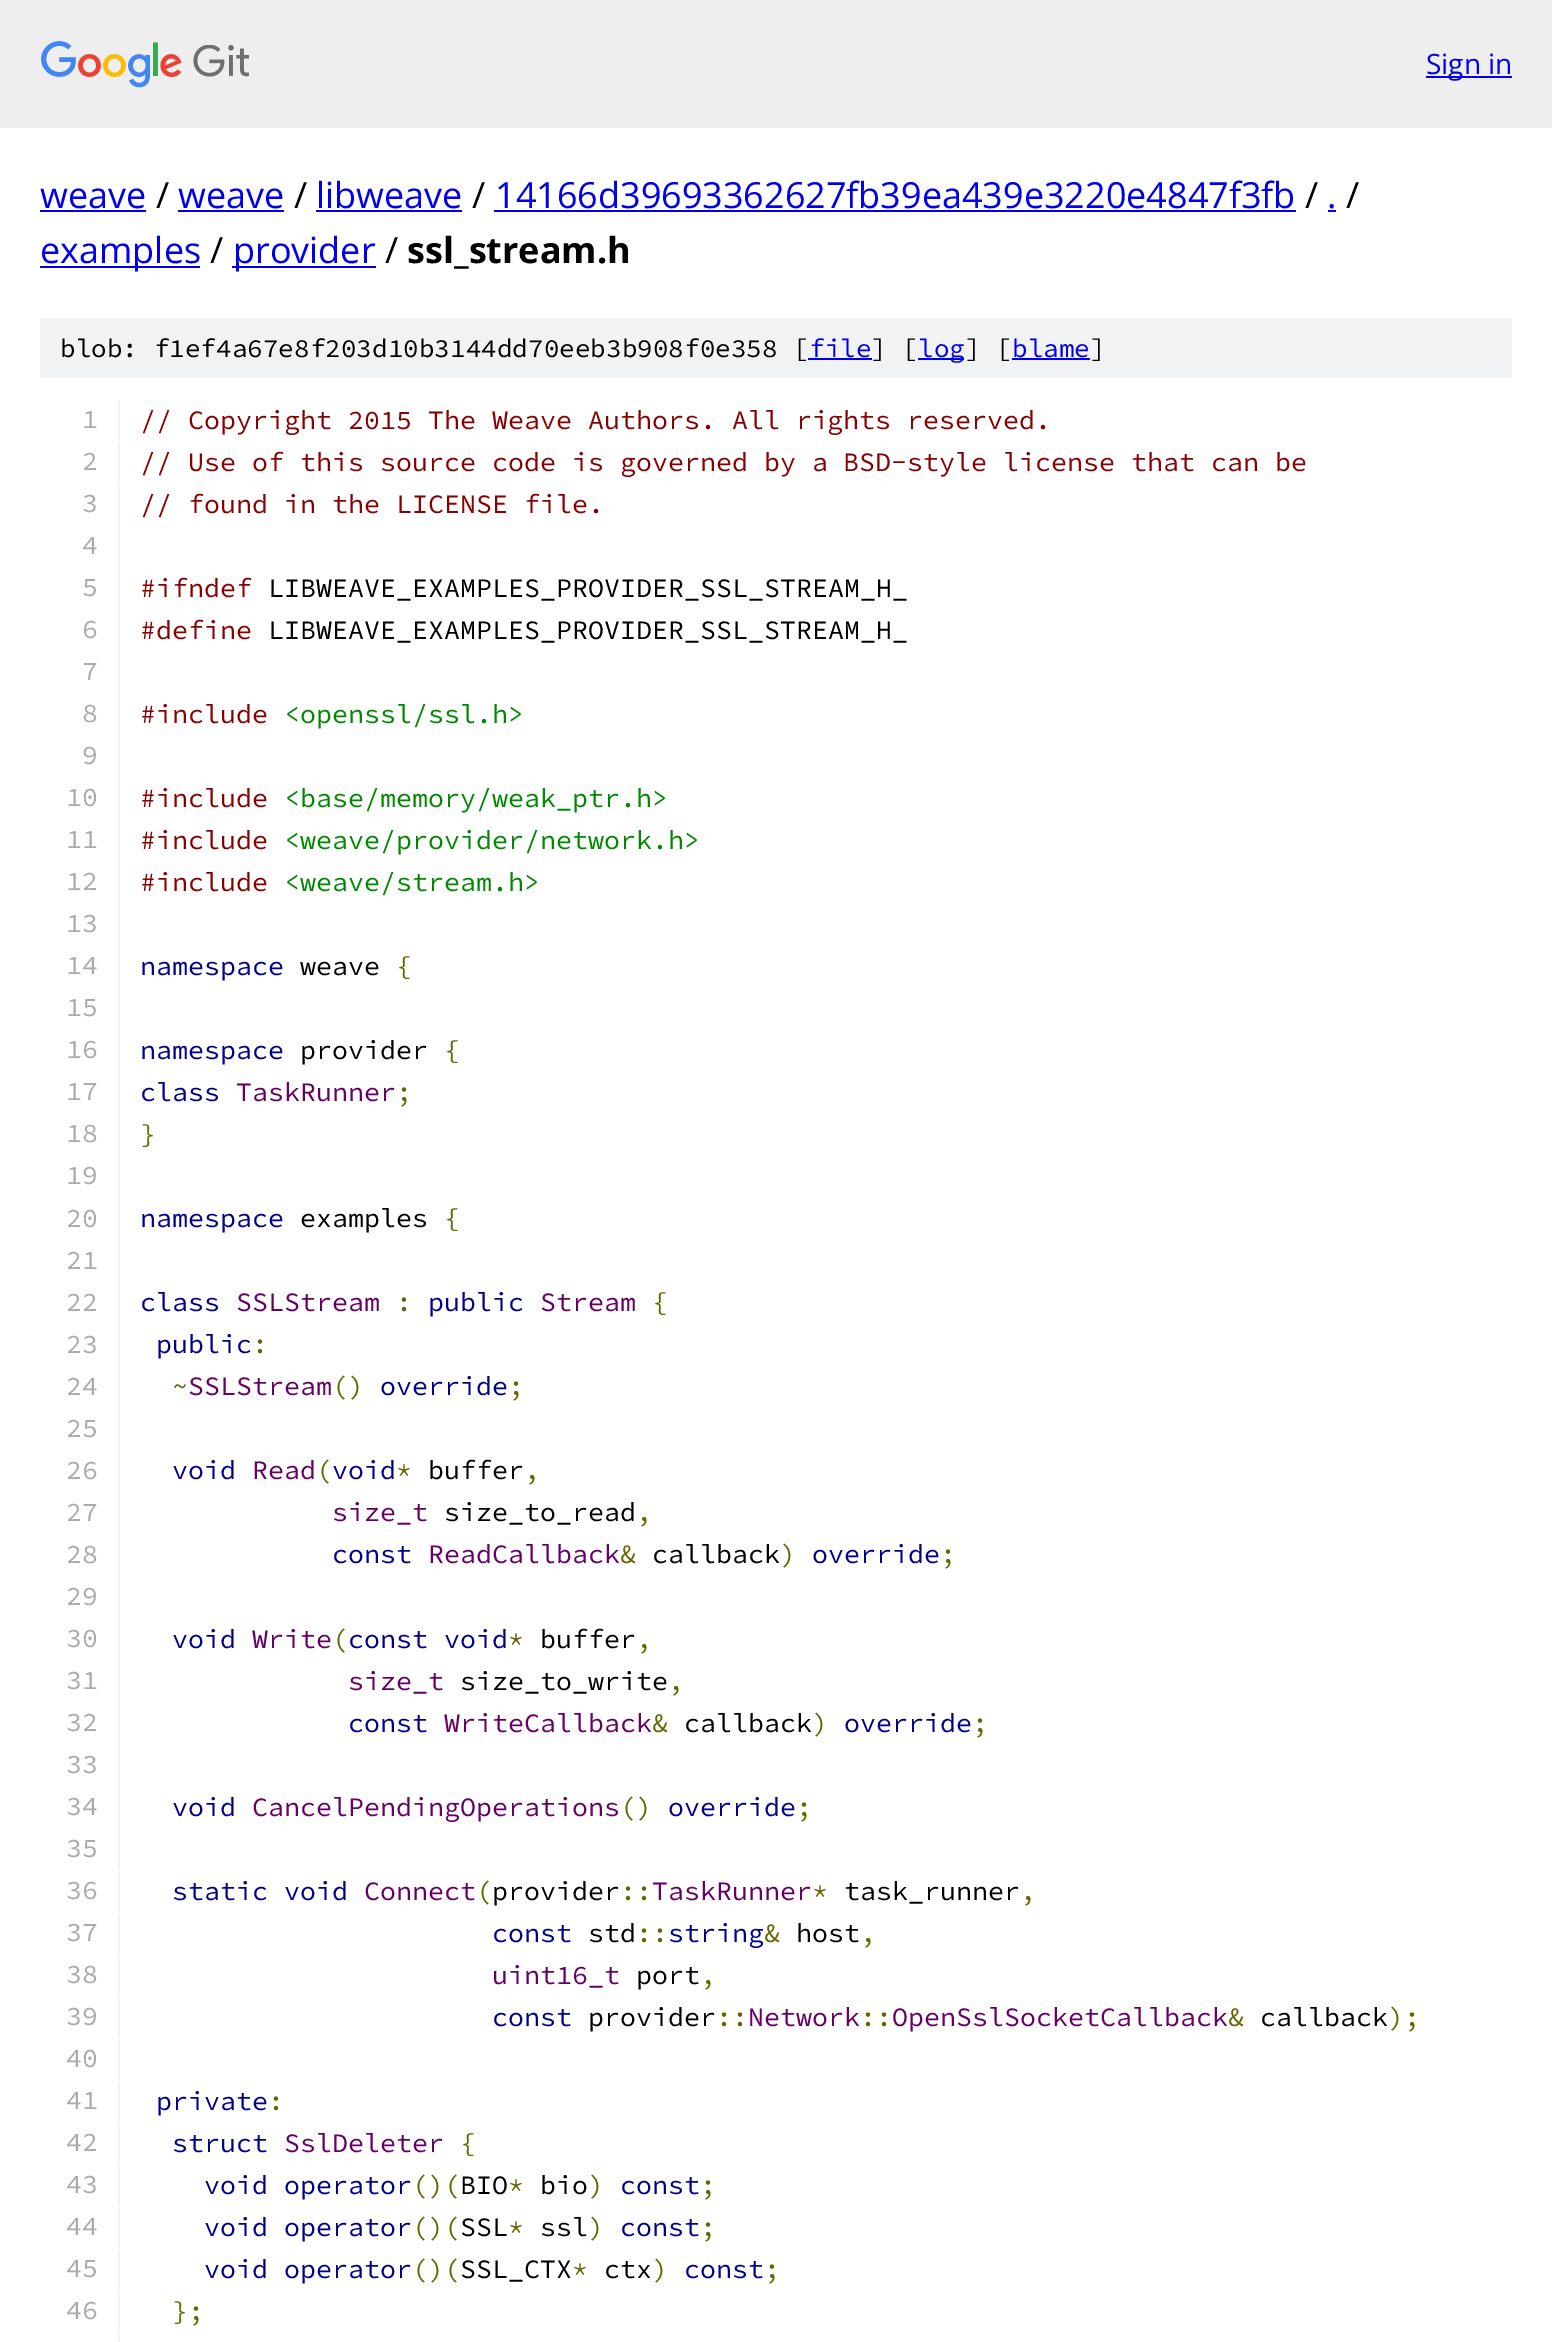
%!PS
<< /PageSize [1552 2342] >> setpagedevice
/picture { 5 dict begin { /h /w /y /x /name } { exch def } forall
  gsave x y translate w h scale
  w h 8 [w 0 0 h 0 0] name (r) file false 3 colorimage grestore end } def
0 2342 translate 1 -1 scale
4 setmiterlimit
1 setgray
0 0 1552 2342 rectfill
0.933 setgray
0 0 1552 128 rectfill
(img1.rgb) 41 41 208 47 picture
0 0 0.933 setrgbcolor
1426 76 86 2 rectfill
/OpenSans-Regular [28 0 0 -28 0 0] selectfont
1426 74 moveto (Sign in) show
/OpenSans-Regular [36 0 0 -36 0 0] selectfont
40 208 moveto (weave) show
40 210 106 2 rectfill
0 setgray
156 208 moveto (/) show
0 0 0.933 setrgbcolor
178 208 moveto (weave) show
178 210 106 2 rectfill
0 setgray
294 208 moveto (/) show
0 0 0.933 setrgbcolor
316 208 moveto (libweave) show
316 210 146 2 rectfill
0 setgray
472 208 moveto (/) show
0 0 0.933 setrgbcolor
495 208 moveto (14166d39693362627fb39ea439e3220e4847f3fb) show
494 210 802 2 rectfill
0 setgray
1305 208 moveto (/) show
0 0 0.933 setrgbcolor
1327 208 moveto (.) show
1328 210 8 2 rectfill
0 setgray
1346 208 moveto (/) show
0 0 0.933 setrgbcolor
40 266 160 2 rectfill
40 263 moveto (examples) show
0 setgray
210 263 moveto (/) show
0 0 0.933 setrgbcolor
232 266 144 2 rectfill
233 263 moveto (provider) show
0 setgray
385 263 moveto (/) show
/OpenSans-Bold [36 0 0 -36 0 0] selectfont
407 263 moveto (ssl_stream.h) show
0.945 0.949 0.953 setrgbcolor
40 318 1472 60 rectfill
/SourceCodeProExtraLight-ExtraLight [26 0 0 -26 0 0] selectfont
0 setgray
60 357 moveto (blob: f1ef4a67e8f203d10b3144dd70eeb3b908f0e358 [) show
0 0 0.933 setrgbcolor
809 357 moveto (file) show
808 358 64 2 rectfill
0 setgray
871 357 moveto (] [) show
0 0 0.933 setrgbcolor
918 358 46 2 rectfill
918 357 moveto (log) show
0 setgray
965 357 moveto (] [) show
0 0 0.933 setrgbcolor
1012 357 moveto (blame) show
1012 358 78 2 rectfill
0 setgray
1090 357 moveto (]) show
0.945 0.949 0.953 setrgbcolor
118 400 2 40 rectfill
/SourceCodeProExtraLight-ExtraLight [26.65 0 0 -26.65 0 0] selectfont
0.667 setgray
82 428 moveto (1) show
0.533 0 0 setrgbcolor
140 429 moveto (// Copyright 2015 The Weave Authors. All rights reserved.) show
0.945 0.949 0.953 setrgbcolor
118 442 2 40 rectfill
0.667 setgray
82 470 moveto (2) show
0.533 0 0 setrgbcolor
140 471 moveto (// Use of this source code is governed by a BSD-style license that can be) show
0.945 0.949 0.953 setrgbcolor
118 484 2 1386 rectfill
0.667 setgray
82 512 moveto (3) show
0.533 0 0 setrgbcolor
140 513 moveto (// found in the LICENSE file.) show
0.667 setgray
82 554 moveto (4) show
82 596 moveto (5) show
0.533 0 0 setrgbcolor
140 597 moveto (#ifndef) show
0 setgray
268 597 moveto (LIBWEAVE_EXAMPLES_PROVIDER_SSL_STREAM_H_) show
0.667 setgray
82 638 moveto (6) show
0.533 0 0 setrgbcolor
140 639 moveto (#define) show
0 setgray
268 639 moveto (LIBWEAVE_EXAMPLES_PROVIDER_SSL_STREAM_H_) show
0.667 setgray
82 680 moveto (7) show
82 722 moveto (8) show
0.533 0 0 setrgbcolor
140 723 moveto (#include) show
0 0.533 0 setrgbcolor
284 723 moveto (<openssl/ssl.h>) show
0.667 setgray
82 764 moveto (9) show
66 806 moveto (10) show
0.533 0 0 setrgbcolor
140 807 moveto (#include) show
0 0.533 0 setrgbcolor
284 807 moveto (<base/memory/weak_ptr.h>) show
0.667 setgray
66 848 moveto (11) show
0.533 0 0 setrgbcolor
140 849 moveto (#include) show
0 0.533 0 setrgbcolor
284 849 moveto (<weave/provider/network.h>) show
0.667 setgray
66 890 moveto (12) show
0.533 0 0 setrgbcolor
140 891 moveto (#include) show
0 0.533 0 setrgbcolor
284 891 moveto (<weave/stream.h>) show
0.667 setgray
66 932 moveto (13) show
66 974 moveto (14) show
0 0 0.533 setrgbcolor
140 975 moveto (namespace) show
0 setgray
300 975 moveto (weave) show
0.4 0.4 0 setrgbcolor
396 975 moveto ({) show
0.667 setgray
66 1016 moveto (15) show
66 1058 moveto (16) show
0 0 0.533 setrgbcolor
140 1059 moveto (namespace) show
0 setgray
300 1059 moveto (provider) show
0.4 0.4 0 setrgbcolor
444 1059 moveto ({) show
0.667 setgray
66 1100 moveto (17) show
0 0 0.533 setrgbcolor
140 1101 moveto (class) show
0.4 0 0.4 setrgbcolor
236 1101 moveto (TaskRunner) show
0.4 0.4 0 setrgbcolor
396 1101 moveto (;) show
0.667 setgray
66 1142 moveto (18) show
0.4 0.4 0 setrgbcolor
140 1143 moveto (}) show
0.667 setgray
66 1184 moveto (19) show
66 1227 moveto (20) show
0 0 0.533 setrgbcolor
140 1227 moveto (namespace) show
0 setgray
300 1227 moveto (examples) show
0.4 0.4 0 setrgbcolor
444 1227 moveto ({) show
0.667 setgray
66 1269 moveto (21) show
66 1311 moveto (22) show
0 0 0.533 setrgbcolor
140 1311 moveto (class) show
0.4 0 0.4 setrgbcolor
236 1311 moveto (SSLStream) show
0.4 0.4 0 setrgbcolor
396 1311 moveto (:) show
0 0 0.533 setrgbcolor
428 1311 moveto (public) show
0.4 0 0.4 setrgbcolor
540 1311 moveto (Stream) show
0.4 0.4 0 setrgbcolor
652 1311 moveto ({) show
0.667 setgray
66 1353 moveto (23) show
0 0 0.533 setrgbcolor
156 1353 moveto (public) show
0.4 0.4 0 setrgbcolor
252 1353 moveto (:) show
0.667 setgray
66 1395 moveto (24) show
0.4 0.4 0 setrgbcolor
172 1395 moveto (~) show
0.4 0 0.4 setrgbcolor
188 1395 moveto (SSLStream) show
0.4 0.4 0 setrgbcolor
332 1395 moveto (\(\)) show
0 0 0.533 setrgbcolor
380 1395 moveto (override) show
0.4 0.4 0 setrgbcolor
508 1395 moveto (;) show
0.667 setgray
66 1437 moveto (25) show
66 1479 moveto (26) show
0 0 0.533 setrgbcolor
172 1479 moveto (void) show
0.4 0 0.4 setrgbcolor
252 1479 moveto (Read) show
0.4 0.4 0 setrgbcolor
316 1479 moveto (\() show
0 0 0.533 setrgbcolor
332 1479 moveto (void) show
0.4 0.4 0 setrgbcolor
396 1479 moveto (*) show
0 setgray
428 1479 moveto (buffer) show
0.4 0.4 0 setrgbcolor
524 1479 moveto (,) show
0.667 setgray
66 1521 moveto (27) show
0.4 0 0.4 setrgbcolor
332 1521 moveto (size_t) show
0 setgray
444 1521 moveto (size_to_read) show
0.4 0.4 0 setrgbcolor
636 1521 moveto (,) show
0.667 setgray
66 1563 moveto (28) show
0 0 0.533 setrgbcolor
332 1563 moveto (const) show
0.4 0 0.4 setrgbcolor
428 1563 moveto (ReadCallback) show
0.4 0.4 0 setrgbcolor
620 1563 moveto (&) show
0 setgray
652 1563 moveto (callback) show
0.4 0.4 0 setrgbcolor
780 1563 moveto (\)) show
0 0 0.533 setrgbcolor
812 1563 moveto (override) show
0.4 0.4 0 setrgbcolor
940 1563 moveto (;) show
0.667 setgray
66 1605 moveto (29) show
66 1647 moveto (30) show
0 0 0.533 setrgbcolor
172 1648 moveto (void) show
0.4 0 0.4 setrgbcolor
252 1648 moveto (Write) show
0.4 0.4 0 setrgbcolor
332 1648 moveto (\() show
0 0 0.533 setrgbcolor
348 1648 moveto (const void) show
0.4 0.4 0 setrgbcolor
508 1648 moveto (*) show
0 setgray
540 1648 moveto (buffer) show
0.4 0.4 0 setrgbcolor
636 1648 moveto (,) show
0.667 setgray
66 1689 moveto (31) show
0.4 0 0.4 setrgbcolor
348 1690 moveto (size_t) show
0 setgray
460 1690 moveto (size_to_write) show
0.4 0.4 0 setrgbcolor
668 1690 moveto (,) show
0.667 setgray
66 1731 moveto (32) show
0 0 0.533 setrgbcolor
348 1732 moveto (const) show
0.4 0 0.4 setrgbcolor
444 1732 moveto (WriteCallback) show
0.4 0.4 0 setrgbcolor
652 1732 moveto (&) show
0 setgray
684 1732 moveto (callback) show
0.4 0.4 0 setrgbcolor
812 1732 moveto (\)) show
0 0 0.533 setrgbcolor
844 1732 moveto (override) show
0.4 0.4 0 setrgbcolor
972 1732 moveto (;) show
0.667 setgray
66 1773 moveto (33) show
66 1815 moveto (34) show
0 0 0.533 setrgbcolor
172 1816 moveto (void) show
0.4 0 0.4 setrgbcolor
252 1816 moveto (CancelPendingOperations) show
0.4 0.4 0 setrgbcolor
620 1816 moveto (\(\)) show
0 0 0.533 setrgbcolor
668 1816 moveto (override) show
0.4 0.4 0 setrgbcolor
796 1816 moveto (;) show
0.667 setgray
66 1857 moveto (35) show
0.945 0.949 0.953 setrgbcolor
118 1872 2 40 rectfill
0.667 setgray
66 1899 moveto (36) show
0 0 0.533 setrgbcolor
172 1900 moveto (static void) show
0.4 0 0.4 setrgbcolor
364 1900 moveto (Connect) show
0.4 0.4 0 setrgbcolor
476 1900 moveto (\() show
0 setgray
492 1900 moveto (provider) show
0.4 0.4 0 setrgbcolor
620 1900 moveto (::) show
0.4 0 0.4 setrgbcolor
652 1900 moveto (TaskRunner) show
0.4 0.4 0 setrgbcolor
812 1900 moveto (*) show
0 setgray
844 1900 moveto (task_runner) show
0.4 0.4 0 setrgbcolor
1020 1900 moveto (,) show
0.945 0.949 0.953 setrgbcolor
118 1914 2 40 rectfill
0.667 setgray
66 1941 moveto (37) show
0 0 0.533 setrgbcolor
492 1942 moveto (const) show
0 setgray
588 1942 moveto (std) show
0.4 0.4 0 setrgbcolor
636 1942 moveto (::) show
0 0 0.533 setrgbcolor
668 1942 moveto (string) show
0.4 0.4 0 setrgbcolor
764 1942 moveto (&) show
0 setgray
796 1942 moveto (host) show
0.4 0.4 0 setrgbcolor
860 1942 moveto (,) show
0.945 0.949 0.953 setrgbcolor
118 1956 2 40 rectfill
0.667 setgray
66 1983 moveto (38) show
0.4 0 0.4 setrgbcolor
492 1984 moveto (uint16_t) show
0 setgray
636 1984 moveto (port) show
0.4 0.4 0 setrgbcolor
700 1984 moveto (,) show
0.945 0.949 0.953 setrgbcolor
118 1998 2 40 rectfill
0.667 setgray
66 2025 moveto (39) show
0 0 0.533 setrgbcolor
492 2026 moveto (const) show
0 setgray
588 2026 moveto (provider) show
0.4 0.4 0 setrgbcolor
716 2026 moveto (::) show
0.4 0 0.4 setrgbcolor
748 2026 moveto (Network) show
0.4 0.4 0 setrgbcolor
860 2026 moveto (::) show
0.4 0 0.4 setrgbcolor
892 2026 moveto (OpenSslSocketCallback) show
0.4 0.4 0 setrgbcolor
1228 2026 moveto (&) show
0 setgray
1260 2026 moveto (callback) show
0.4 0.4 0 setrgbcolor
1388 2026 moveto (\);) show
0.945 0.949 0.953 setrgbcolor
118 2040 2 40 rectfill
0.667 setgray
66 2067 moveto (40) show
0.945 0.949 0.953 setrgbcolor
118 2082 2 40 rectfill
0.667 setgray
66 2109 moveto (41) show
0 0 0.533 setrgbcolor
156 2110 moveto (private) show
0.4 0.4 0 setrgbcolor
268 2110 moveto (:) show
0.945 0.949 0.953 setrgbcolor
118 2124 2 40 rectfill
0.667 setgray
66 2151 moveto (42) show
0 0 0.533 setrgbcolor
172 2152 moveto (struct) show
0.4 0 0.4 setrgbcolor
284 2152 moveto (SslDeleter) show
0.4 0.4 0 setrgbcolor
460 2152 moveto ({) show
0.945 0.949 0.953 setrgbcolor
118 2166 2 40 rectfill
0.667 setgray
66 2193 moveto (43) show
0 0 0.533 setrgbcolor
204 2194 moveto (void operator) show
0.4 0.4 0 setrgbcolor
412 2194 moveto (\(\)\() show
0 setgray
460 2194 moveto (BIO) show
0.4 0.4 0 setrgbcolor
508 2194 moveto (*) show
0 setgray
540 2194 moveto (bio) show
0.4 0.4 0 setrgbcolor
588 2194 moveto (\)) show
0 0 0.533 setrgbcolor
620 2194 moveto (const) show
0.4 0.4 0 setrgbcolor
700 2194 moveto (;) show
0.945 0.949 0.953 setrgbcolor
118 2208 2 40 rectfill
0.667 setgray
66 2235 moveto (44) show
0 0 0.533 setrgbcolor
204 2236 moveto (void operator) show
0.4 0.4 0 setrgbcolor
412 2236 moveto (\(\)\() show
0 setgray
460 2236 moveto (SSL) show
0.4 0.4 0 setrgbcolor
508 2236 moveto (*) show
0 setgray
540 2236 moveto (ssl) show
0.4 0.4 0 setrgbcolor
588 2236 moveto (\)) show
0 0 0.533 setrgbcolor
620 2236 moveto (const) show
0.4 0.4 0 setrgbcolor
700 2236 moveto (;) show
0.945 0.949 0.953 setrgbcolor
118 2250 2 40 rectfill
0.667 setgray
66 2277 moveto (45) show
0 0 0.533 setrgbcolor
204 2278 moveto (void operator) show
0.4 0.4 0 setrgbcolor
412 2278 moveto (\(\)\() show
0 setgray
460 2278 moveto (SSL_CTX) show
0.4 0.4 0 setrgbcolor
572 2278 moveto (*) show
0 setgray
604 2278 moveto (ctx) show
0.4 0.4 0 setrgbcolor
652 2278 moveto (\)) show
0 0 0.533 setrgbcolor
684 2278 moveto (const) show
0.4 0.4 0 setrgbcolor
764 2278 moveto (;) show
0.945 0.949 0.953 setrgbcolor
118 2292 2 40 rectfill
0.667 setgray
66 2319 moveto (46) show
0.4 0.4 0 setrgbcolor
172 2320 moveto (};) show
0.945 0.949 0.953 setrgbcolor
118 2334 2 8 rectfill
showpage
